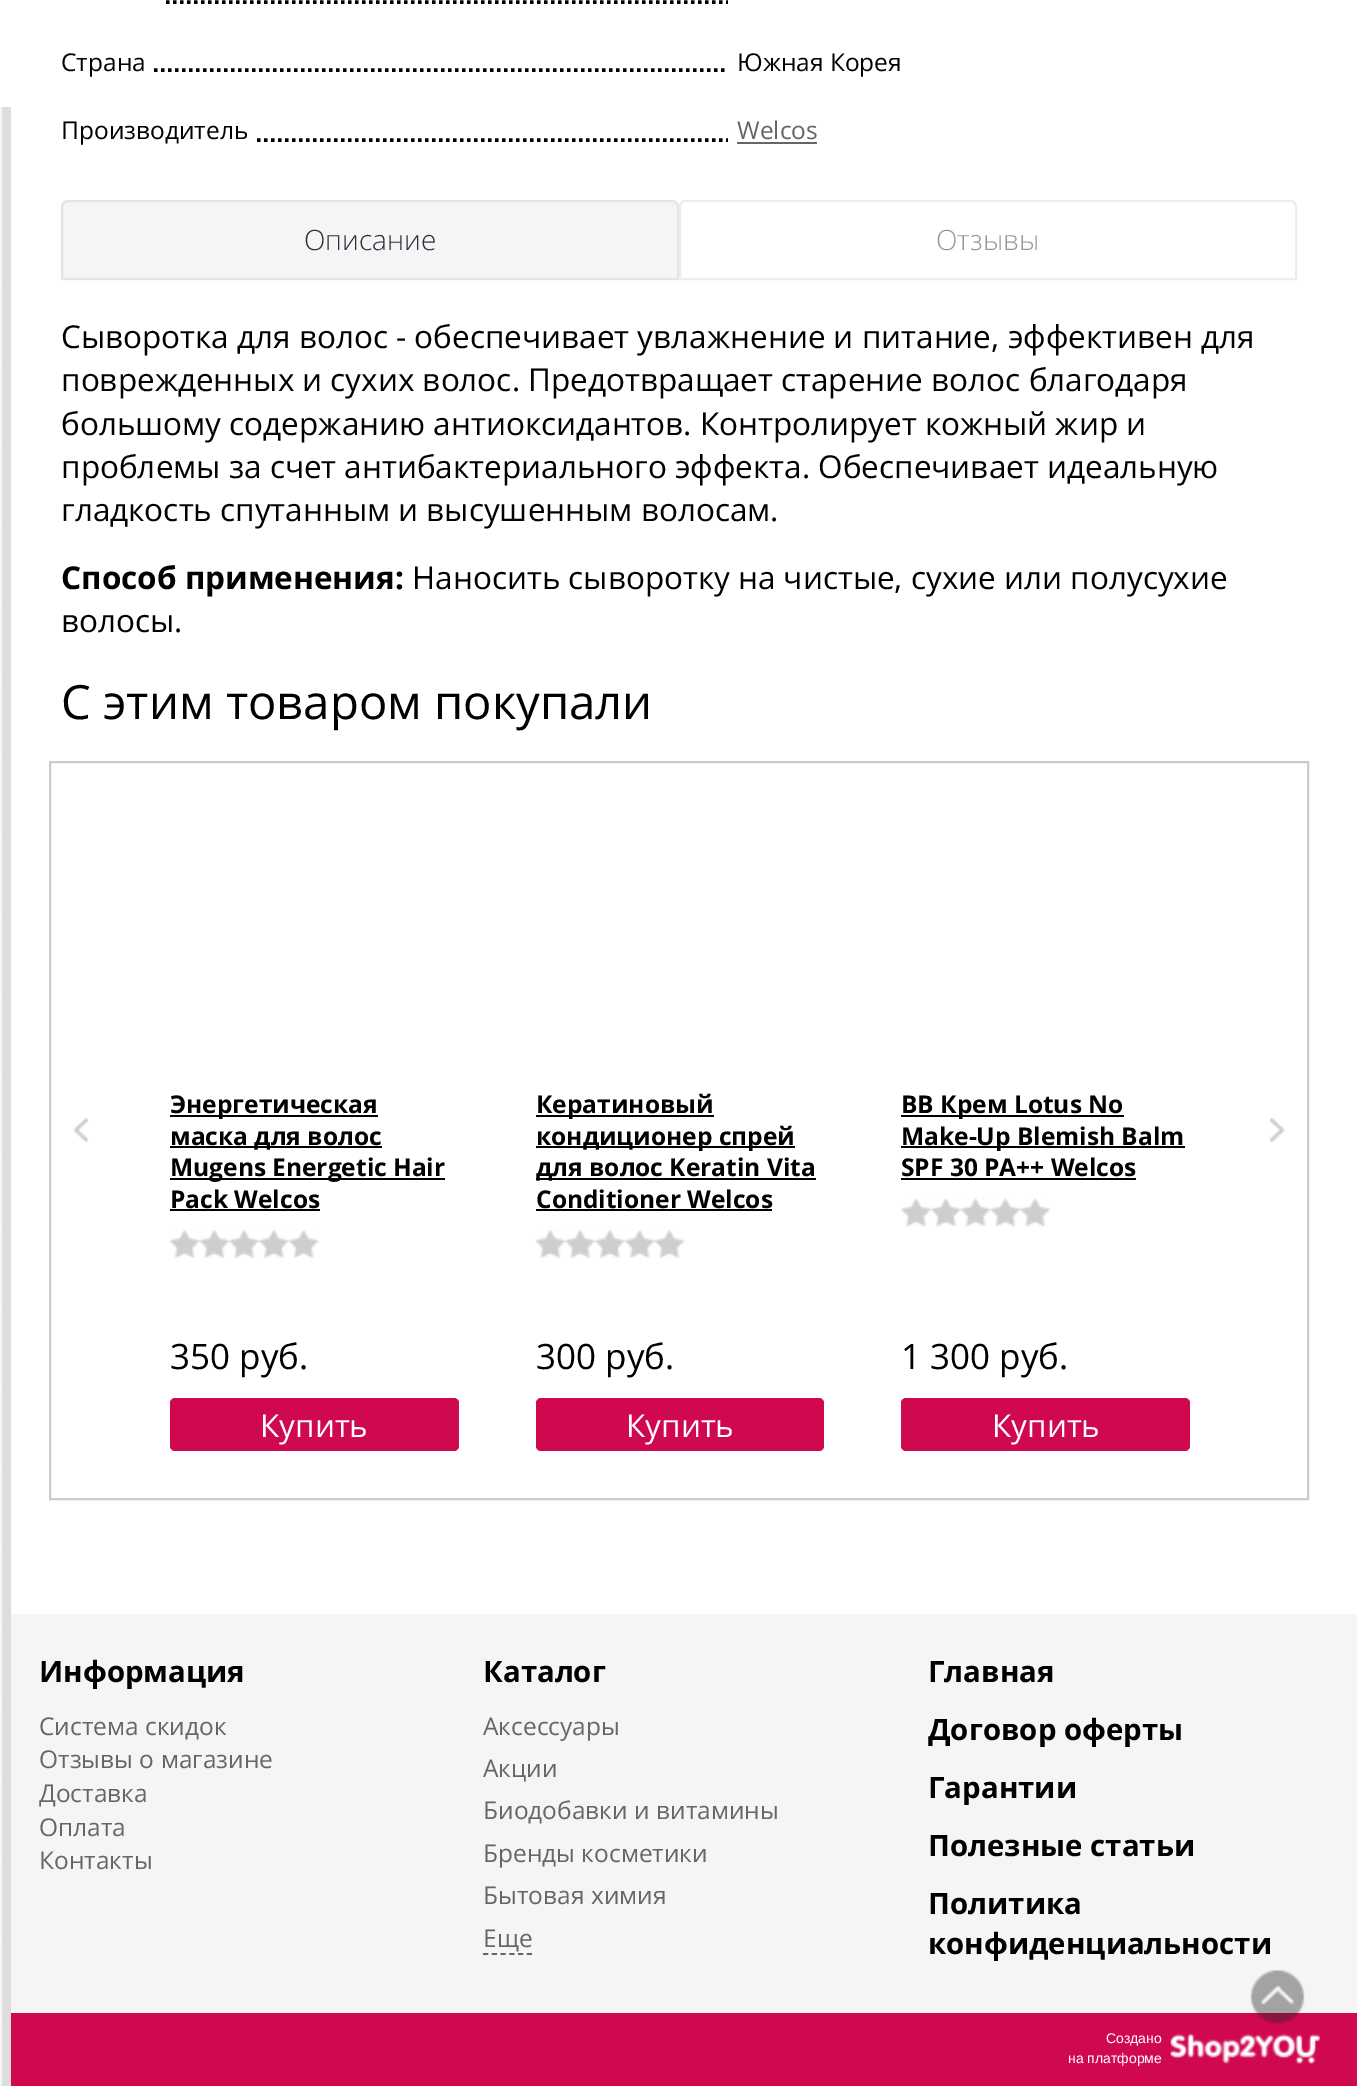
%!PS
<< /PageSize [1357 2086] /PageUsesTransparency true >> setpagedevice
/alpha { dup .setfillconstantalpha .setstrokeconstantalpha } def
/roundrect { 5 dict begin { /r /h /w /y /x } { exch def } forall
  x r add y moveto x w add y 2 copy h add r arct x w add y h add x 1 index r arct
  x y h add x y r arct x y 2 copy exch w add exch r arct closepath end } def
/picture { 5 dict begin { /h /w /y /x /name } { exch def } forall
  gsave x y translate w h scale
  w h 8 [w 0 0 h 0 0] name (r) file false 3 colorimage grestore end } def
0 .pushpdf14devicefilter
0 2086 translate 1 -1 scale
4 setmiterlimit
1 setgray
0 0 1357 2086 rectfill
0.961 setgray
0 107 2 1979 rectfill
0.867 setgray
2 107 9 1979 rectfill
0.973 setgray
0 285 2 2 rectfill
0 364 2 2 rectfill
0 443 2 2 rectfill
0 522 2 2 rectfill
0 600 2 2 rectfill
0 679 2 2 rectfill
0 758 2 2 rectfill
0 837 2 2 rectfill
0 915 2 2 rectfill
0 994 2 2 rectfill
0 1073 2 2 rectfill
0 1152 2 2 rectfill
0 1230 2 2 rectfill
0 1309 2 2 rectfill
0 1388 2 2 rectfill
0 1467 2 2 rectfill
0 1545 2 2 rectfill
0 1624 2 2 rectfill
0 1703 2 2 rectfill
0 1782 2 2 rectfill
0 1860 2 2 rectfill
0 1939 2 2 rectfill
0 2018 2 2 rectfill
gsave
61 0 667 26 rectclip
0 setgray
3.5 setlinewidth
[3.5 3.5] 0 setdash
newpath 166 2 moveto 833 2 lineto stroke
grestore
/OpenSans-Regular [24.5 0 0 -24.5 0 0] selectfont
0 setgray
61 71 moveto (Страна) show
gsave
61 26 667 70 rectclip
3.5 setlinewidth
[3.5 3.5] 0 setdash
newpath 154 70 moveto 822.5 70 lineto stroke
grestore
737 71 moveto (Южная Корея) show
61 139 moveto (Производитель) show
gsave
61 96 667 69 rectclip
3.5 setlinewidth
[3.5 3.5] 0 setdash
newpath 257 140 moveto 924 140 lineto stroke
grestore
0.4 setgray
737 139 moveto (Welcos) show
737 142 80 2 rectfill
0.961 setgray
newpath 68 200 moveto 672 200 lineto 676 200 679 203 679 207 curveto 679 280 lineto 61 280 lineto 61 207 lineto 61 203 64 200 68 200 curveto closepath fill
0.07 alpha
0 setgray
2 setlinewidth
newpath 68 201 moveto 672 201 lineto 675.5 201 678 203.5 678 207 curveto 678 279 lineto 62 279 lineto 62 207 lineto 62 203.5 64.5 201 68 201 curveto closepath stroke
/OpenSans-Light [28 0 0 -28 0 0] selectfont
1 alpha
0.157 0.188 0.235 setrgbcolor
304 250 moveto (Описание) show
0.929 setgray
newpath 686 201 moveto 1290 201 lineto 1293.5 201 1296 203.5 1296 207 curveto 1296 279 lineto 680 279 lineto 680 207 lineto 680 203.5 682.5 201 686 201 curveto closepath stroke
0.58 0.596 0.62 setrgbcolor
936 250 moveto (Отзывы) show
/OpenSans-Regular [31.5 0 0 -31.5 0 0] selectfont
0 setgray
61 348 moveto (Сыворотка для волос - обеспечивает увлажнение и питание, эффективен для) show
61 391 moveto (поврежденных и сухих волос. Предотвращает старение волос благодаря) show
61 435 moveto (большому содержанию антиоксидантов. Контролирует кожный жир и) show
61 478 moveto (проблемы за счет антибактериального эффекта. Обеспечивает идеальную) show
61 521 moveto (гладкость спутанным и высушенным волосам.) show
/OpenSans-Bold [31.5 0 0 -31.5 0 0] selectfont
61 589 moveto (Способ применения:) show
/OpenSans-Regular [31.5 0 0 -31.5 0 0] selectfont
412 589 moveto (Наносить сыворотку на чистые, сухие или полусухие) show
61 632 moveto (волосы.) show
/OpenSans-Regular [47.25 0 0 -47.25 0 0] selectfont
61 719 moveto (С этим товаром покупали) show
0.8 setgray
50 762 1258 737 rectstroke
0 setgray
170 1115 208 2 rectfill
/OpenSans-Bold [24.5 0 0 -24.5 0 0] selectfont
170 1113 moveto (Энергетическая) show
170 1146 212 2 rectfill
170 1145 moveto (маска для волос) show
170 1178 275 2 rectfill
170 1176 moveto (Mugens Energetic Hair) show
170 1208 moveto (Pack Welcos) show
170 1209 150 2 rectfill
(img1.rgb) 169 1229 150 29 picture
/OpenSans-Regular [35 0 0 -35 0 0] selectfont
170 1369 moveto (350 руб.) show
0.812 0.031 0.31 setrgbcolor
170 1398 289 53 5 roundrect fill
/OpenSans-Regular [31.5 0 0 -31.5 0 0] selectfont
1 setgray
260 1437 moveto (Купить) show
0 setgray
536 1115 178 2 rectfill
/OpenSans-Bold [24.5 0 0 -24.5 0 0] selectfont
536 1113 moveto (Кератиновый) show
536 1146 259 2 rectfill
536 1145 moveto (кондиционер спрей) show
536 1178 280 2 rectfill
gsave
536 1089 288 126 rectclip
536 1176 moveto (для волос Keratin Vita) show
grestore
536 1208 moveto (Conditioner Welcos) show
536 1209 236 2 rectfill
(img2.rgb) 535 1229 150 29 picture
/OpenSans-Regular [35 0 0 -35 0 0] selectfont
536 1369 moveto (300 руб.) show
0.812 0.031 0.31 setrgbcolor
536 1398 288 53 5 roundrect fill
/OpenSans-Regular [31.5 0 0 -31.5 0 0] selectfont
1 setgray
626 1437 moveto (Купить) show
0 setgray
901 1115 223 2 rectfill
/OpenSans-Bold [24.5 0 0 -24.5 0 0] selectfont
901 1113 moveto (ВВ Крем Lotus No) show
901 1146 284 2 rectfill
901 1145 moveto (Make-Up Blemish Balm) show
901 1176 moveto (SPF 30 PA++ Welcos) show
901 1178 235 2 rectfill
(img3.rgb) 901 1198 150 29 picture
/OpenSans-Regular [35 0 0 -35 0 0] selectfont
901 1369 moveto (1 300 руб.) show
0.812 0.031 0.31 setrgbcolor
901 1398 289 53 5 roundrect fill
/OpenSans-Regular [31.5 0 0 -31.5 0 0] selectfont
1 setgray
992 1437 moveto (Купить) show
(img4.rgb) 73 1117 16 26 picture
(img5.rgb) 1269 1117 16 26 picture
0.961 setgray
11 1614 1346 399 rectfill
/OpenSans-Bold [29.4 0 0 -29.4 0 0] selectfont
0 setgray
39 1682 moveto (Информация) show
/OpenSans-Regular [24.5 0 0 -24.5 0 0] selectfont
0.4 setgray
39 1735 moveto (Система скидок) show
39 1768 moveto (Отзывы о магазине) show
39 1802 moveto (Доставка) show
39 1836 moveto (Оплата) show
39 1869 moveto (Контакты) show
/OpenSans-Bold [29.4 0 0 -29.4 0 0] selectfont
0 setgray
483 1682 moveto (Каталог) show
/OpenSans-Regular [24.5 0 0 -24.5 0 0] selectfont
0.4 setgray
483 1735 moveto (Аксессуары) show
483 1777 moveto (Акции) show
483 1819 moveto (Биодобавки и витамины) show
483 1862 moveto (Бренды косметики) show
483 1904 moveto (Бытовая химия) show
483 1947 moveto (Еще) show
1.8 setlinewidth
[5.25 3.5] 0 setdash
newpath 483 1954 moveto 532 1954 lineto stroke
/OpenSans-Bold [29.4 0 0 -29.4 0 0] selectfont
0 setgray
928 1682 moveto (Главная) show
928 1740 moveto (Договор оферты) show
928 1798 moveto (Гарантии) show
928 1856 moveto (Полезные статьи) show
928 1914 moveto (Политика) show
928 1954 moveto (конфиденциальности) show
0.812 0.031 0.31 setrgbcolor
11 2013 1346 73 rectfill
(img6.rgb) 1250 1970 55 54 picture
/LiberationSans-Regular [14 0 0 -14 0 0] selectfont
1 setgray
1106 2043 moveto (Создано) show
1068 2063 moveto (на платформе) show
(img7.rgb) 1170 2033 150 31 picture
.poppdf14devicefilter showpage
